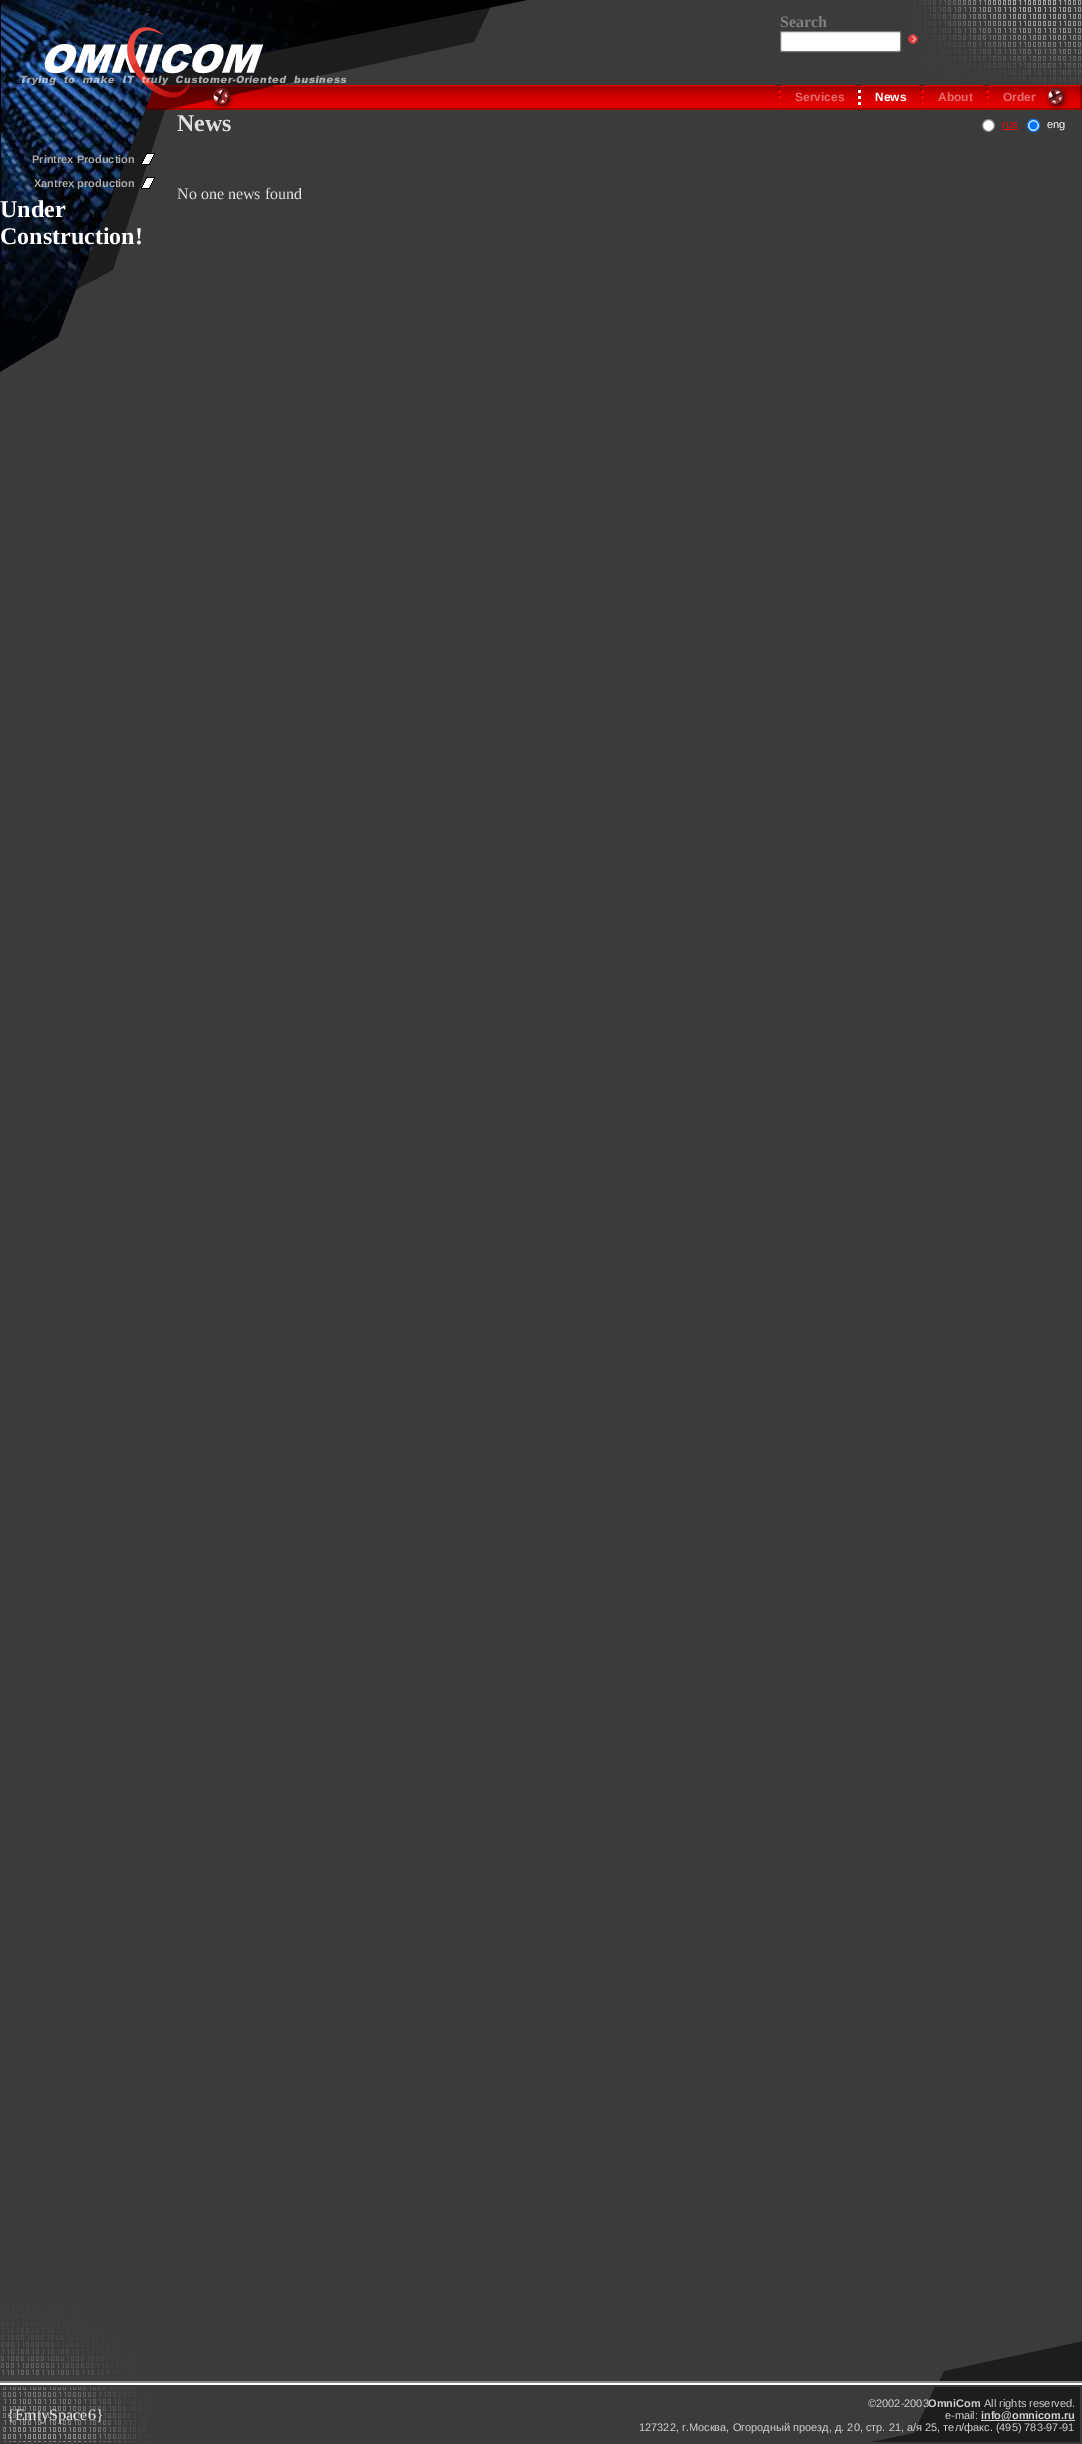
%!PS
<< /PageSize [1082 2444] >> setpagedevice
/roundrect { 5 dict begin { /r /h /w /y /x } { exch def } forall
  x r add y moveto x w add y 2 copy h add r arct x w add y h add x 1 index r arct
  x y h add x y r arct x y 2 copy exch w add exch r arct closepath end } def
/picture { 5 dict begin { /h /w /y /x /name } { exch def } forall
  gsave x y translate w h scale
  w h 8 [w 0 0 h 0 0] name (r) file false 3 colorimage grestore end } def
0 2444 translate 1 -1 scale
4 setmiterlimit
0.231 setgray
0 0 1082 2444 rectfill
(img1.rgb) 913 0 168 85 picture
(img2.rgb) 0 0 523 85 picture
(img3.rgb) 155 0 371 85 picture
/LiberationSerif-Bold [16 0 0 -16 0 0] selectfont
0.502 setgray
780 27 moveto (Search) show
1 setgray
780.5 31.5 120 20 1.5 roundrect gsave fill grestore
0.463 setgray
stroke
(img4.rgb) 908 34 10 10 picture
(img5.rgb) 20 27 327 58 picture
(img6.rgb) 0 85 152 25 picture
(img7.rgb) 145 85 128 25 picture
(img8.rgb) 273 85 771 25 picture
(img9.rgb) 777 85 5 20 picture
/LiberationSans-Bold [12 0 0 -12 0 0] selectfont
0.902 0.42 0.42 setrgbcolor
795 101 moveto (Services) show
(img10.rgb) 857 85 5 20 picture
1 setgray
875 101 moveto (News) show
(img9.rgb) 920 85 5 20 picture
0.902 0.42 0.42 setrgbcolor
938 101 moveto (About) show
(img9.rgb) 985 85 5 20 picture
1003 101 moveto (Order) show
(img11.rgb) 1044 85 38 25 picture
(img12.rgb) 0 110 144 219 picture
(img13.rgb) 0 110 165 264 picture
/LiberationSans-Bold [11 0 0 -11 0 0] selectfont
0.667 setgray
32 163 moveto (Printrex Production) show
(img14.rgb) 141 153 14 12 picture
34 187 moveto (Xantrex production) show
(img15.rgb) 141 177 14 12 picture
/LiberationSerif-Bold [24 0 0 -24 0 0] selectfont
1 setgray
0 217 moveto (Under) show
0 244 moveto (Construction!) show
(img16.rgb) 1 2304 133 71 picture
(img17.rgb) 939 2341 143 40 picture
0.875 setgray
177 131 moveto (News) show
1 setgray
newpath 988.5 125.5 6 0 360 arc closepath gsave fill grestore
0.463 setgray
stroke
/LiberationSans-Regular [11 0 0 -11 0 0] selectfont
1 0 0 setrgbcolor
1002 128 moveto (rus) show
1002 129 16 1 rectfill
1 setgray
newpath 1033.5 125.5 6 0 360 arc closepath gsave fill grestore
0 0.459 1 setrgbcolor
stroke
newpath 1033.5 125.5 4 0 360 arc closepath fill
1 setgray
1047 128 moveto (eng) show
/LiberationSerif-Regular [16 0 0 -16 0 0] selectfont
0.875 setgray
177 199 moveto (No one news found) show
(img18.rgb) 0 2381 1082 4 picture
(img19.rgb) 3 2387 148 55 picture
7 2420 moveto ({EmtySpace6}) show
(img20.rgb) 872 2387 208 55 picture
/LiberationSans-Regular [11 0 0 -11 0 0] selectfont
0.812 setgray
868 2407 moveto (©2002-2003) show
/LiberationSans-Bold [11 0 0 -11 0 0] selectfont
928 2407 moveto (OmniCom) show
/LiberationSans-Regular [11 0 0 -11 0 0] selectfont
984 2407 moveto (All rights reserved.) show
945 2419 moveto (e-mail:) show
981 2420 94 1 rectfill
/LiberationSans-Bold [11 0 0 -11 0 0] selectfont
981 2419 moveto (info@omnicom.ru) show
/LiberationSans-Regular [11 0 0 -11 0 0] selectfont
639 2431 moveto (127322, г.Москва, Огородный проезд, д. 20, стр. 21, а/я 25, тел/факс. \(495\) 783-97-91) show
showpage
